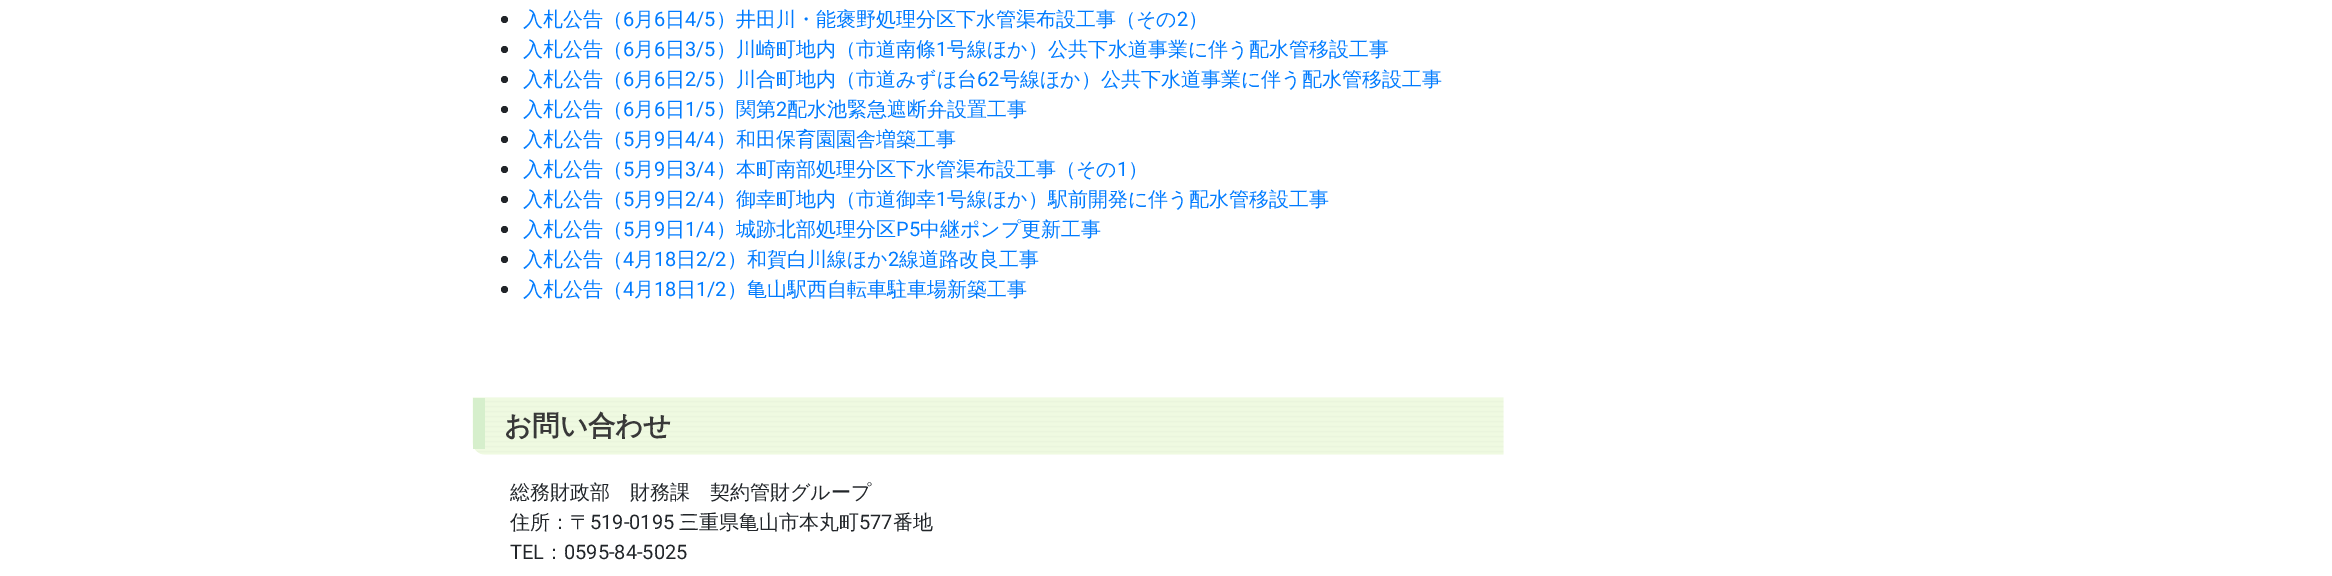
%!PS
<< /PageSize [2332 576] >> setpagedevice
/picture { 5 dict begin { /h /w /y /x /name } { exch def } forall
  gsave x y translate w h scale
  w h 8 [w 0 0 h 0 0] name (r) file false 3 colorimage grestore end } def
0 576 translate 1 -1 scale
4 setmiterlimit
1 setgray
0 0 2332 576 rectfill
0.129 0.145 0.161 setrgbcolor
newpath 504.5 19.5 3.5 0 360 arc closepath fill
/WenQuanYiZenHei-Medium [20 0 0 -20 0 0] selectfont
0 0.482 1 setrgbcolor
523 26 moveto (入札公告（) show
/Roboto-Regular [20 0 0 -20 0 0] selectfont
623 26 moveto (6) show
/WenQuanYiZenHei-Medium [20 0 0 -20 0 0] selectfont
634 26 moveto (月) show
/Roboto-Regular [20 0 0 -20 0 0] selectfont
654 26 moveto (6) show
/WenQuanYiZenHei-Medium [20 0 0 -20 0 0] selectfont
665 26 moveto (日) show
/Roboto-Regular [20 0 0 -20 0 0] selectfont
685 26 moveto (4/5) show
/WenQuanYiZenHei-Medium [20 0 0 -20 0 0] selectfont
716 26 moveto (）井田川・能褒野処理分区下水管渠布設工事（その) show
/Roboto-Regular [20 0 0 -20 0 0] selectfont
1177 26 moveto (2) show
/WenQuanYiZenHei-Medium [20 0 0 -20 0 0] selectfont
1188 26 moveto (）) show
0.129 0.145 0.161 setrgbcolor
newpath 504.5 49.5 3.5 0 360 arc closepath fill
0 0.482 1 setrgbcolor
523 56 moveto (入札公告（) show
/Roboto-Regular [20 0 0 -20 0 0] selectfont
623 56 moveto (6) show
/WenQuanYiZenHei-Medium [20 0 0 -20 0 0] selectfont
634 56 moveto (月) show
/Roboto-Regular [20 0 0 -20 0 0] selectfont
654 56 moveto (6) show
/WenQuanYiZenHei-Medium [20 0 0 -20 0 0] selectfont
665 56 moveto (日) show
/Roboto-Regular [20 0 0 -20 0 0] selectfont
685 56 moveto (3/5) show
/WenQuanYiZenHei-Medium [20 0 0 -20 0 0] selectfont
716 56 moveto (）川崎町地内（市道南條) show
/Roboto-Regular [20 0 0 -20 0 0] selectfont
936 56 moveto (1) show
/WenQuanYiZenHei-Medium [20 0 0 -20 0 0] selectfont
947 56 moveto (号線ほか）公共下水道事業に伴う配水管移設工事) show
0.129 0.145 0.161 setrgbcolor
newpath 504.5 79.5 3.5 0 360 arc closepath fill
0 0.482 1 setrgbcolor
523 86 moveto (入札公告（) show
/Roboto-Regular [20 0 0 -20 0 0] selectfont
623 86 moveto (6) show
/WenQuanYiZenHei-Medium [20 0 0 -20 0 0] selectfont
634 86 moveto (月) show
/Roboto-Regular [20 0 0 -20 0 0] selectfont
654 86 moveto (6) show
/WenQuanYiZenHei-Medium [20 0 0 -20 0 0] selectfont
665 86 moveto (日) show
/Roboto-Regular [20 0 0 -20 0 0] selectfont
685 86 moveto (2/5) show
/WenQuanYiZenHei-Medium [20 0 0 -20 0 0] selectfont
716 86 moveto (）川合町地内（市道みずほ台) show
/Roboto-Regular [20 0 0 -20 0 0] selectfont
977 86 moveto (62) show
/WenQuanYiZenHei-Medium [20 0 0 -20 0 0] selectfont
1000 86 moveto (号線ほか）公共下水道事業に伴う配水管移設工事) show
0.129 0.145 0.161 setrgbcolor
newpath 504.5 109.5 3.5 0 360 arc closepath fill
0 0.482 1 setrgbcolor
523 116 moveto (入札公告（) show
/Roboto-Regular [20 0 0 -20 0 0] selectfont
623 116 moveto (6) show
/WenQuanYiZenHei-Medium [20 0 0 -20 0 0] selectfont
634 116 moveto (月) show
/Roboto-Regular [20 0 0 -20 0 0] selectfont
654 116 moveto (6) show
/WenQuanYiZenHei-Medium [20 0 0 -20 0 0] selectfont
665 116 moveto (日) show
/Roboto-Regular [20 0 0 -20 0 0] selectfont
685 116 moveto (1/5) show
/WenQuanYiZenHei-Medium [20 0 0 -20 0 0] selectfont
716 116 moveto (）関第) show
/Roboto-Regular [20 0 0 -20 0 0] selectfont
776 116 moveto (2) show
/WenQuanYiZenHei-Medium [20 0 0 -20 0 0] selectfont
787 116 moveto (配水池緊急遮断弁設置工事) show
0.129 0.145 0.161 setrgbcolor
newpath 504.5 139.5 3.5 0 360 arc closepath fill
0 0.482 1 setrgbcolor
523 146 moveto (入札公告（) show
/Roboto-Regular [20 0 0 -20 0 0] selectfont
623 146 moveto (5) show
/WenQuanYiZenHei-Medium [20 0 0 -20 0 0] selectfont
634 146 moveto (月) show
/Roboto-Regular [20 0 0 -20 0 0] selectfont
654 146 moveto (9) show
/WenQuanYiZenHei-Medium [20 0 0 -20 0 0] selectfont
665 146 moveto (日) show
/Roboto-Regular [20 0 0 -20 0 0] selectfont
685 146 moveto (4/4) show
/WenQuanYiZenHei-Medium [20 0 0 -20 0 0] selectfont
716 146 moveto (）和田保育園園舎増築工事) show
0.129 0.145 0.161 setrgbcolor
newpath 504.5 169.5 3.5 0 360 arc closepath fill
0 0.482 1 setrgbcolor
523 176 moveto (入札公告（) show
/Roboto-Regular [20 0 0 -20 0 0] selectfont
623 176 moveto (5) show
/WenQuanYiZenHei-Medium [20 0 0 -20 0 0] selectfont
634 176 moveto (月) show
/Roboto-Regular [20 0 0 -20 0 0] selectfont
654 176 moveto (9) show
/WenQuanYiZenHei-Medium [20 0 0 -20 0 0] selectfont
665 176 moveto (日) show
/Roboto-Regular [20 0 0 -20 0 0] selectfont
685 176 moveto (3/4) show
/WenQuanYiZenHei-Medium [20 0 0 -20 0 0] selectfont
716 176 moveto (）本町南部処理分区下水管渠布設工事（その) show
/Roboto-Regular [20 0 0 -20 0 0] selectfont
1117 176 moveto (1) show
/WenQuanYiZenHei-Medium [20 0 0 -20 0 0] selectfont
1128 176 moveto (）) show
0.129 0.145 0.161 setrgbcolor
newpath 504.5 199.5 3.5 0 360 arc closepath fill
0 0.482 1 setrgbcolor
523 206 moveto (入札公告（) show
/Roboto-Regular [20 0 0 -20 0 0] selectfont
623 206 moveto (5) show
/WenQuanYiZenHei-Medium [20 0 0 -20 0 0] selectfont
634 206 moveto (月) show
/Roboto-Regular [20 0 0 -20 0 0] selectfont
654 206 moveto (9) show
/WenQuanYiZenHei-Medium [20 0 0 -20 0 0] selectfont
665 206 moveto (日) show
/Roboto-Regular [20 0 0 -20 0 0] selectfont
685 206 moveto (2/4) show
/WenQuanYiZenHei-Medium [20 0 0 -20 0 0] selectfont
716 206 moveto (）御幸町地内（市道御幸) show
/Roboto-Regular [20 0 0 -20 0 0] selectfont
936 206 moveto (1) show
/WenQuanYiZenHei-Medium [20 0 0 -20 0 0] selectfont
947 206 moveto (号線ほか）駅前開発に伴う配水管移設工事) show
0.129 0.145 0.161 setrgbcolor
newpath 504.5 229.5 3.5 0 360 arc closepath fill
0 0.482 1 setrgbcolor
523 236 moveto (入札公告（) show
/Roboto-Regular [20 0 0 -20 0 0] selectfont
623 236 moveto (5) show
/WenQuanYiZenHei-Medium [20 0 0 -20 0 0] selectfont
634 236 moveto (月) show
/Roboto-Regular [20 0 0 -20 0 0] selectfont
654 236 moveto (9) show
/WenQuanYiZenHei-Medium [20 0 0 -20 0 0] selectfont
665 236 moveto (日) show
/Roboto-Regular [20 0 0 -20 0 0] selectfont
685 236 moveto (1/4) show
/WenQuanYiZenHei-Medium [20 0 0 -20 0 0] selectfont
716 236 moveto (）城跡北部処理分区) show
/Roboto-Regular [20 0 0 -20 0 0] selectfont
896 236 moveto (P5) show
/WenQuanYiZenHei-Medium [20 0 0 -20 0 0] selectfont
920 236 moveto (中継ポンプ更新工事) show
0.129 0.145 0.161 setrgbcolor
newpath 504.5 259.5 3.5 0 360 arc closepath fill
0 0.482 1 setrgbcolor
523 266 moveto (入札公告（) show
/Roboto-Regular [20 0 0 -20 0 0] selectfont
623 266 moveto (4) show
/WenQuanYiZenHei-Medium [20 0 0 -20 0 0] selectfont
634 266 moveto (月) show
/Roboto-Regular [20 0 0 -20 0 0] selectfont
654 266 moveto (18) show
/WenQuanYiZenHei-Medium [20 0 0 -20 0 0] selectfont
676 266 moveto (日) show
/Roboto-Regular [20 0 0 -20 0 0] selectfont
696 266 moveto (2/2) show
/WenQuanYiZenHei-Medium [20 0 0 -20 0 0] selectfont
727 266 moveto (）和賀白川線ほか) show
/Roboto-Regular [20 0 0 -20 0 0] selectfont
888 266 moveto (2) show
/WenQuanYiZenHei-Medium [20 0 0 -20 0 0] selectfont
899 266 moveto (線道路改良工事) show
0.129 0.145 0.161 setrgbcolor
newpath 504.5 289.5 3.5 0 360 arc closepath fill
0 0.482 1 setrgbcolor
523 296 moveto (入札公告（) show
/Roboto-Regular [20 0 0 -20 0 0] selectfont
623 296 moveto (4) show
/WenQuanYiZenHei-Medium [20 0 0 -20 0 0] selectfont
634 296 moveto (月) show
/Roboto-Regular [20 0 0 -20 0 0] selectfont
654 296 moveto (18) show
/WenQuanYiZenHei-Medium [20 0 0 -20 0 0] selectfont
676 296 moveto (日) show
/Roboto-Regular [20 0 0 -20 0 0] selectfont
696 296 moveto (1/2) show
/WenQuanYiZenHei-Medium [20 0 0 -20 0 0] selectfont
727 296 moveto (）亀山駅西自転車駐車場新築工事) show
(img1.rgb) 472 397 1032 58 picture
0.839 0.937 0.8 setrgbcolor
473 398 12 51 rectfill
/WenQuanYiZenHei-Bold [27.5 0 0 -27.5 0 0] selectfont
0.22 setgray
504 435 moveto (お問い合わせ) show
/WenQuanYiZenHei-Medium [20 0 0 -20 0 0] selectfont
0.129 0.145 0.161 setrgbcolor
510 499 moveto (総務財政部　財務課　契約管財グループ) show
510 529 moveto (住所：〒) show
/Roboto-Regular [20 0 0 -20 0 0] selectfont
590 529 moveto (519-0195) show
/WenQuanYiZenHei-Medium [20 0 0 -20 0 0] selectfont
679 529 moveto (三重県亀山市本丸町) show
/Roboto-Regular [20 0 0 -20 0 0] selectfont
859 529 moveto (577) show
/WenQuanYiZenHei-Medium [20 0 0 -20 0 0] selectfont
893 529 moveto (番地) show
/Roboto-Regular [20 0 0 -20 0 0] selectfont
510 559 moveto (TEL) show
/WenQuanYiZenHei-Medium [20 0 0 -20 0 0] selectfont
544 559 moveto (：) show
/Roboto-Regular [20 0 0 -20 0 0] selectfont
564 559 moveto (0595-84-5025) show
showpage
